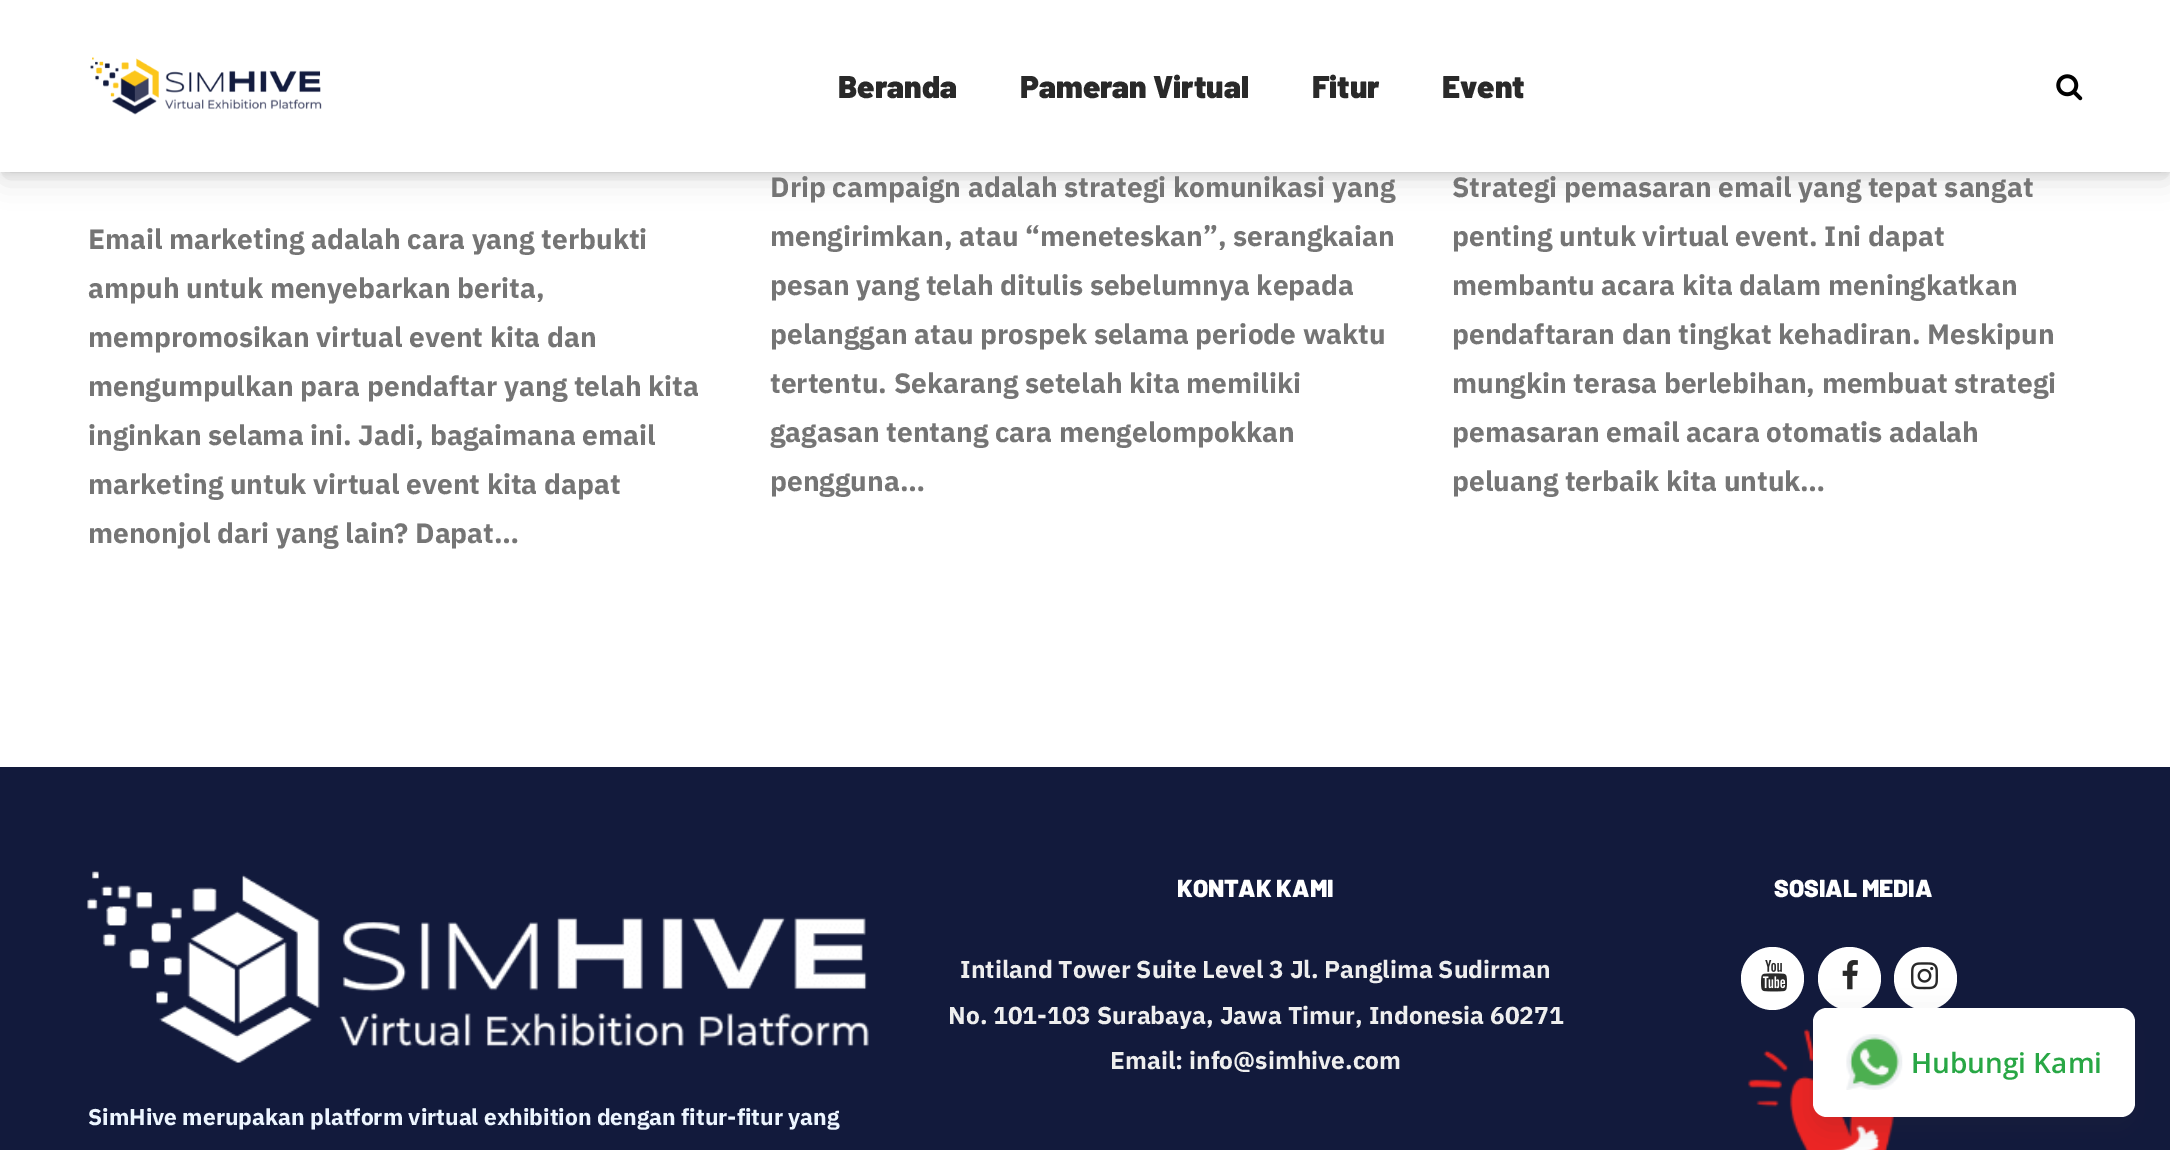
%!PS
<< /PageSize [2170 1150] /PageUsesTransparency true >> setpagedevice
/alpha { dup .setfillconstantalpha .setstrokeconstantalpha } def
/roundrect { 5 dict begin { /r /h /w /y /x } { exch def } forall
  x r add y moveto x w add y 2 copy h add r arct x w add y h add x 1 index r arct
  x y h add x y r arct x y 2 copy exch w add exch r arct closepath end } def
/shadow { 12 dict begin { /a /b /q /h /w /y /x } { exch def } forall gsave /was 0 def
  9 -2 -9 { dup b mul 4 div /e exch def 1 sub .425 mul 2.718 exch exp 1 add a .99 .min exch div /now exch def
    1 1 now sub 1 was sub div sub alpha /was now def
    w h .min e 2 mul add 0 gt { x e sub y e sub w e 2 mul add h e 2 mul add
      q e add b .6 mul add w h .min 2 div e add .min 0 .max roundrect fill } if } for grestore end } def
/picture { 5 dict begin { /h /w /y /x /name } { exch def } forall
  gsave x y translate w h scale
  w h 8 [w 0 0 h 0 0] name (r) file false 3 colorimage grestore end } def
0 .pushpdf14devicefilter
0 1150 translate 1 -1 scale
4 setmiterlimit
1 setgray
0 0 2170 1150 rectfill
0 setgray
4 12 2163 165 0 15 0.15 shadow
4 7 2163 165 0 4.5 0.15 shadow
1 setgray
0 0 2170 172 rectfill
(img1.rgb) 90 57 232 58 picture
/Barlow-Black [31.5 0 0 -31.5 0 0] selectfont
0.161 setgray
838 98 moveto (Beranda) show
1020 98 moveto (Pameran Virtual) show
1312 98 moveto (Fitur) show
1442 98 moveto (Event) show
(img2.rgb) 2056 74 27 27 picture
/IBMPlexSans-Bold [28 0 0 -28 0 0] selectfont
0.459 setgray
88 249 moveto (Email marketing adalah cara yang terbukti) show
88 298 moveto (ampuh untuk menyebarkan berita,) show
88 347 moveto (mempromosikan virtual event kita dan) show
88 396 moveto (mengumpulkan para pendaftar yang telah kita) show
88 445 moveto (inginkan selama ini. Jadi, bagaimana email) show
88 494 moveto (marketing untuk virtual event kita dapat) show
88 543 moveto (menonjol dari yang lain? Dapat…) show
770 197 moveto (Drip campaign adalah strategi komunikasi yang) show
770 246 moveto (mengirimkan, atau “meneteskan”, serangkaian) show
770 295 moveto (pesan yang telah ditulis sebelumnya kepada) show
770 344 moveto (pelanggan atau prospek selama periode waktu) show
770 393 moveto (tertentu. Sekarang setelah kita memiliki) show
770 442 moveto (gagasan tentang cara mengelompokkan) show
770 491 moveto (pengguna…) show
1452 197 moveto (Strategi pemasaran email yang tepat sangat) show
1452 246 moveto (penting untuk virtual event. Ini dapat) show
1452 295 moveto (membantu acara kita dalam meningkatkan) show
1452 344 moveto (pendaftaran dan tingkat kehadiran. Meskipun) show
1452 393 moveto (mungkin terasa berlebihan, membuat strategi) show
1452 442 moveto (pemasaran email acara otomatis adalah) show
1452 491 moveto (peluang terbaik kita untuk…) show
0.071 0.102 0.235 setrgbcolor
0 767 2170 383 rectfill
/Barlow-Black [24.5 0 0 -24.5 0 0] selectfont
1 setgray
1177 897 moveto (KONTAK KAMI) show
/IBMPlexSans-Bold [24.5 0 0 -24.5 0 0] selectfont
0.933 setgray
960 978 moveto (Intiland Tower Suite Level 3 Jl. Panglima Sudirman) show
948 1024 moveto (No. 101-103 Surabaya, Jawa Timur, Indonesia 60271) show
1110 1069 moveto (Email: info@simhive.com) show
/Barlow-Black [24.5 0 0 -24.5 0 0] selectfont
1 setgray
1774 897 moveto (SOSIAL MEDIA) show
newpath 1772.5 978.5 31.5 0 360 arc closepath fill
(img3.rgb) 1761 960 26 32 picture
newpath 1849.5 978.5 31.5 0 360 arc closepath fill
(img4.rgb) 1842 960 16 30 picture
newpath 1925.5 978.5 31.5 0 360 arc closepath fill
(img5.rgb) 1911 962 27 28 picture
(img6.rgb) 1747 1029 147 121 picture
(img7.rgb) 87 871 782 192 picture
/IBMPlexSans-Bold [22.75 0 0 -22.75 0 0] selectfont
0.925 0.961 1 setrgbcolor
88 1125 moveto (SimHive merupakan platform virtual exhibition dengan fitur-fitur yang) show
0.18 setgray
1813 1020 322 109 14 14 0.15 shadow
1 setgray
1813 1008 322 109 14 roundrect fill
(img8.rgb) 1846 1034 57 56 picture
/OpenSans-SemiBold [28 0 0 -28 0 0] selectfont
0.157 0.655 0.271 setrgbcolor
1911 1073 moveto (Hubungi Kami) show
.poppdf14devicefilter showpage
